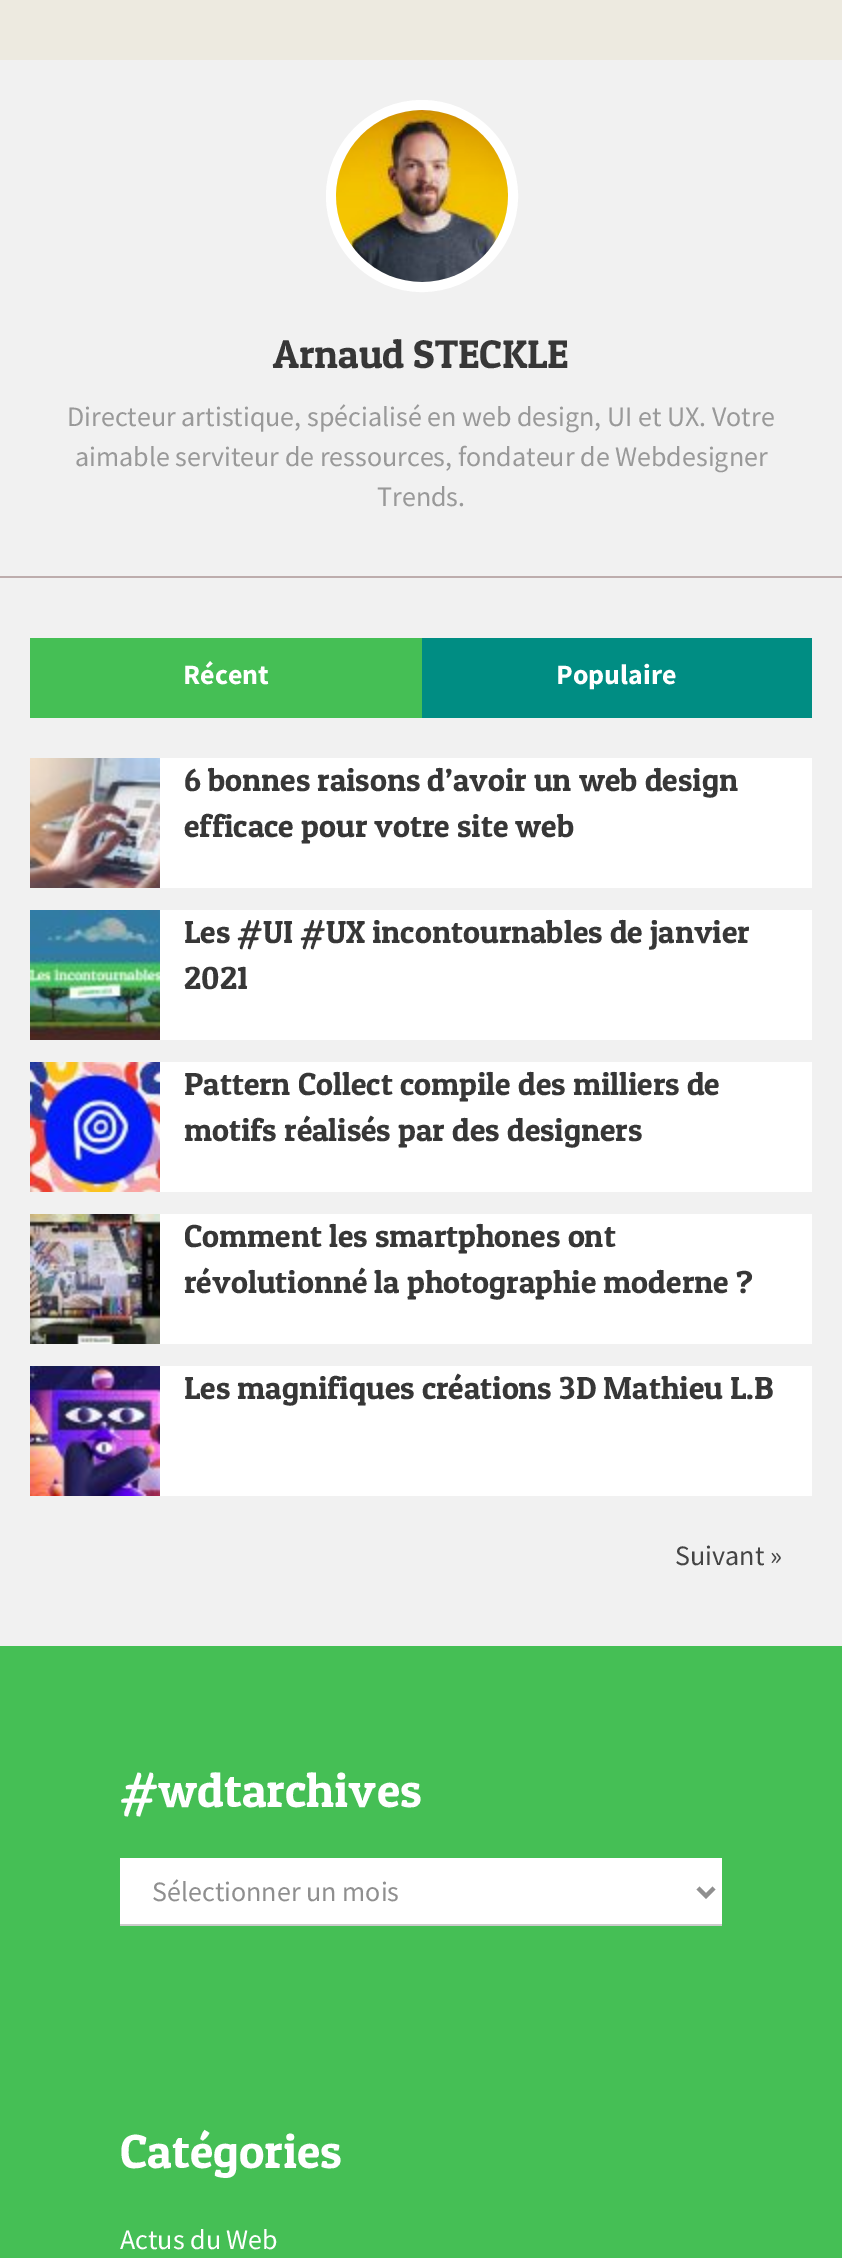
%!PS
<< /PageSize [842 2258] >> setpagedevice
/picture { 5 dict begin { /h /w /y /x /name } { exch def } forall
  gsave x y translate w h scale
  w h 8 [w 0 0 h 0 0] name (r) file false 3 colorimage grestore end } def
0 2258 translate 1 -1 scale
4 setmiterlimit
0.945 setgray
0 0 842 2258 rectfill
0.929 0.918 0.878 setrgbcolor
0 0 842 60 rectfill
0.741 0.678 0.678 setrgbcolor
0 576 842 2 rectfill
1 setgray
10 setlinewidth
newpath 422 196 91 0 360 arc closepath stroke
(img1.rgb) 336 110 172 172 picture
/PatuaOne-Regular [40 0 0 -40 0 0] selectfont
0.216 setgray
273 368 moveto (Arnaud STECKLE) show
/SourceSansPro-Regular [28 0 0 -28 0 0] selectfont
0.6 setgray
67 426 moveto (Directeur artistique, spécialisé en web design, UI et UX. Votre) show
75 466 moveto (aimable serviteur de ressources, fondateur de Webdesigner) show
377 506 moveto (Trends.) show
0.271 0.749 0.333 setrgbcolor
30 638 392 80 rectfill
/SourceSansPro-Bold [28 0 0 -28 0 0] selectfont
1 setgray
183 684 moveto (Récent) show
0 0.553 0.514 setrgbcolor
422 638 390 80 rectfill
1 setgray
556 684 moveto (Populaire) show
160 758 652 130 rectfill
(img2.rgb) 30 758 130 130 picture
/PatuaOne-Regular [32 0 0 -32 0 0] selectfont
0.216 setgray
184 791 moveto (6 bonnes raisons d’avoir un web design) show
184 837 moveto (efficace pour votre site web) show
1 setgray
160 910 652 130 rectfill
(img3.rgb) 30 910 130 130 picture
0.216 setgray
184 943 moveto (Les #UI #UX incontournables de janvier) show
184 989 moveto (2021) show
1 setgray
160 1062 652 130 rectfill
(img4.rgb) 30 1062 130 130 picture
0.216 setgray
184 1095 moveto (Pattern Collect compile des milliers de) show
184 1141 moveto (motifs réalisés par des designers) show
1 setgray
160 1214 652 130 rectfill
(img5.rgb) 30 1214 130 130 picture
0.216 setgray
184 1247 moveto (Comment les smartphones ont) show
184 1293 moveto (révolutionné la photographie moderne ?) show
1 setgray
160 1366 652 130 rectfill
(img6.rgb) 30 1366 130 130 picture
0.216 setgray
184 1399 moveto (Les magnifiques créations 3D Mathieu L.B) show
/SourceSansPro-Regular [28 0 0 -28 0 0] selectfont
0.267 setgray
675 1565 moveto (Suivant ») show
0.271 0.749 0.333 setrgbcolor
0 1646 842 612 rectfill
/PatuaOne-Regular [48 0 0 -48 0 0] selectfont
1 setgray
120 1807 moveto (#wdtarchives) show
120 1858 602 66 rectfill
0.8 setgray
120 1924 602 2 rectfill
0.561 setgray
4 setlinewidth
newpath 698 1888 moveto 706 1896 lineto 714 1888 lineto stroke
/SourceSansPro-Regular [28 0 0 -28 0 0] selectfont
152 1901 moveto (Sélectionner un mois) show
/PatuaOne-Regular [48 0 0 -48 0 0] selectfont
1 setgray
120 2168 moveto (Catégories) show
/SourceSansPro-Regular [28 0 0 -28 0 0] selectfont
120 2249 moveto (Actus du Web) show
showpage
